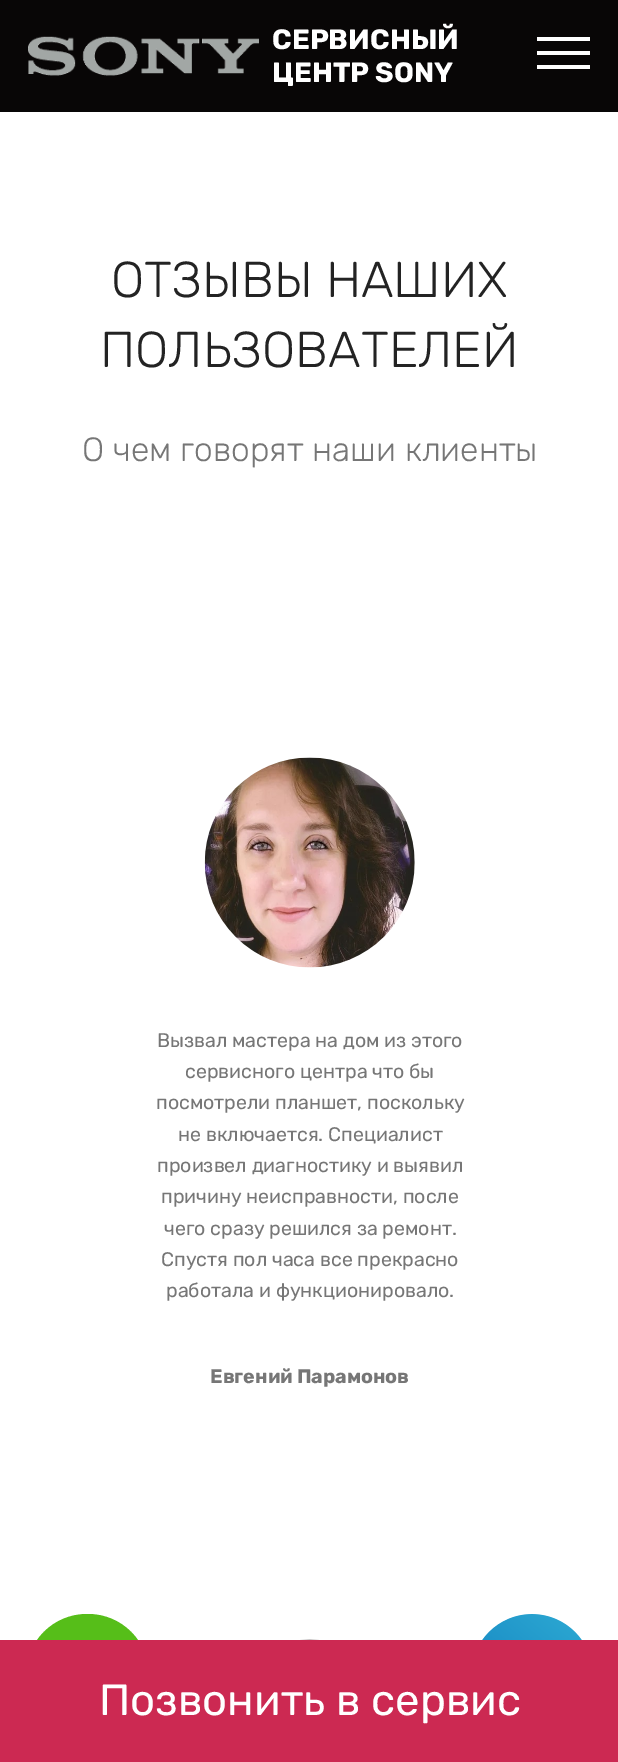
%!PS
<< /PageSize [618 1762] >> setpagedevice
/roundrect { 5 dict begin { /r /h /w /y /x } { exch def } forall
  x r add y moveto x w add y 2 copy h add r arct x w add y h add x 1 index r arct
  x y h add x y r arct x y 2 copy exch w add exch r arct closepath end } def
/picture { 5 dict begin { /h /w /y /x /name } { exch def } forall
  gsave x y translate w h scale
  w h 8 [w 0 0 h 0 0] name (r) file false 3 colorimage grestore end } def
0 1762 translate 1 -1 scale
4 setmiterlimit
1 setgray
0 0 618 1762 rectfill
0.031 0.024 0.024 setrgbcolor
0 0 618 112 rectfill
(img1.rgb) 28 36 231 40 picture
/Rubik-Bold [28 0 0 -28 0 0] selectfont
1 setgray
272 49 moveto (СЕРВИСНЫЙ) show
272 82 moveto (ЦЕНТР SONY) show
537 37 53 4 rectfill
537 51 53 4 rectfill
537 65 53 4 rectfill
/Rubik-Light [50.25 0 0 -50.25 0 0] selectfont
0.137 setgray
111 297 moveto (ОТЗЫВЫ НАШИХ) show
100 367 moveto (ПОЛЬЗОВАТЕЛЕЙ) show
/Rubik-Light [33.6 0 0 -33.6 0 0] selectfont
0.463 setgray
82 461 moveto (О чем говорят наши клиенты) show
(img2.rgb) 204 757 211 211 picture
/Rubik-Regular [19.6 0 0 -19.6 0 0] selectfont
157 1047 moveto (Вызвал мастера на дом из этого) show
185 1078 moveto (сервисного центра что бы) show
156 1109 moveto (посмотрели планшет, поскольку) show
178 1141 moveto (не включается. Специалист) show
157 1172 moveto (произвел диагностику и выявил) show
161 1203 moveto (причину неисправности, после) show
164 1235 moveto (чего сразу решился за ремонт.) show
161 1266 moveto (Спустя пол часа все прекрасно) show
166 1297 moveto (работала и функционировало.) show
/Rubik-Bold [19.6 0 0 -19.6 0 0] selectfont
210 1383 moveto (Евгений Парамонов) show
(img3.rgb) 300 1639 19 1 picture
0.337 0.745 0.098 setrgbcolor
26 1614 123 122 61 roundrect fill
(img4.rgb) 482 1614 100 26 picture
0.8 0.161 0.322 setrgbcolor
0 1640 618 122 rectfill
/Rubik-Regular [43.75 0 0 -43.75 0 0] selectfont
1 setgray
99 1715 moveto (Позвонить в сервис) show
showpage
